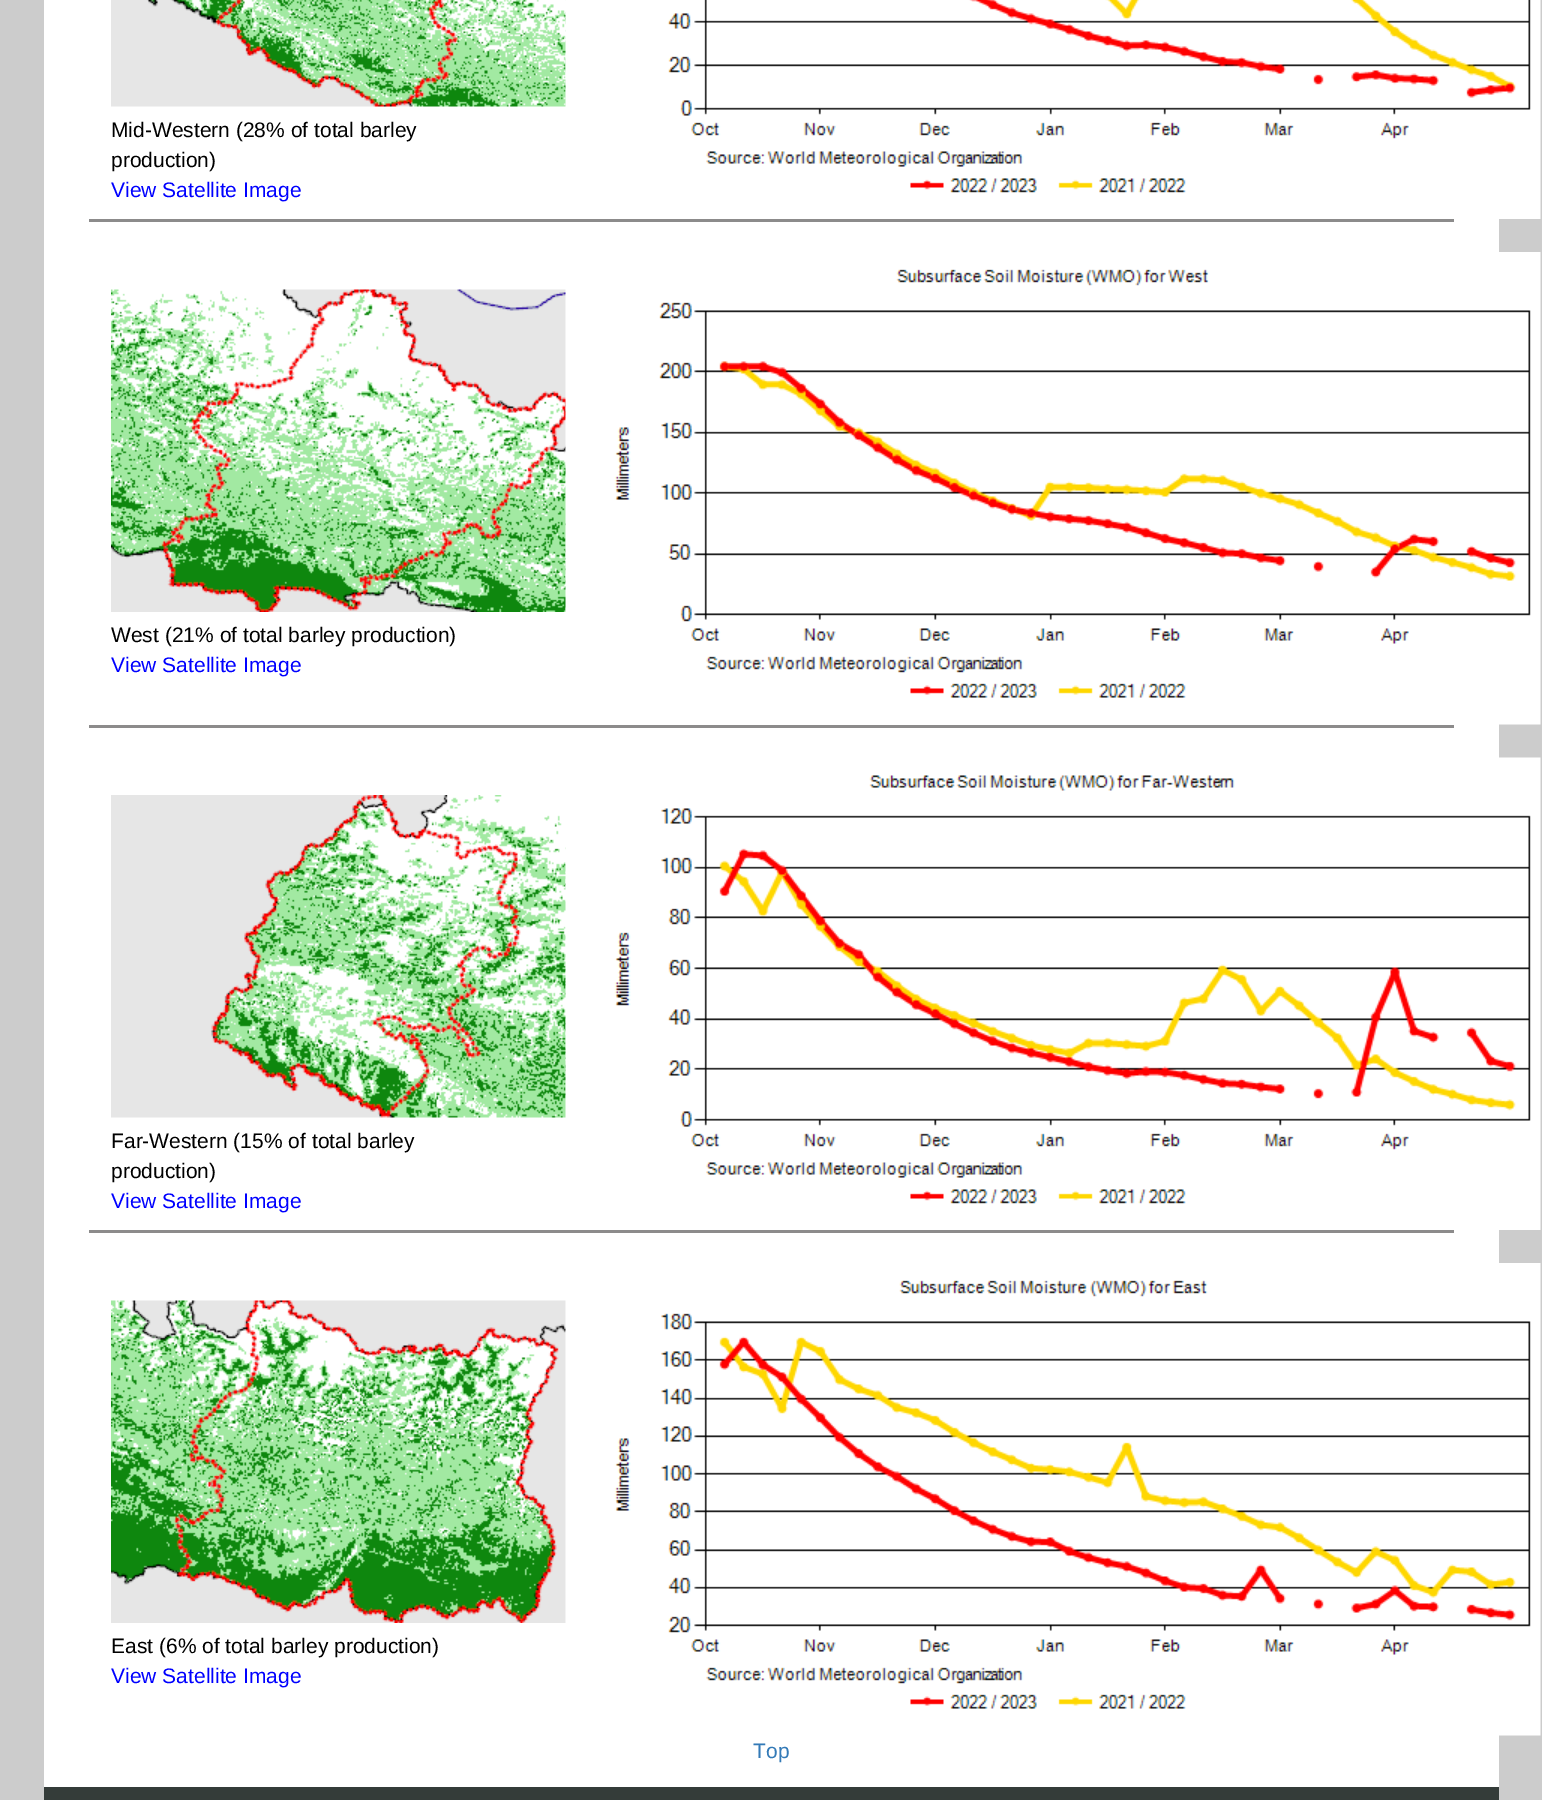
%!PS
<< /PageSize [1542 1800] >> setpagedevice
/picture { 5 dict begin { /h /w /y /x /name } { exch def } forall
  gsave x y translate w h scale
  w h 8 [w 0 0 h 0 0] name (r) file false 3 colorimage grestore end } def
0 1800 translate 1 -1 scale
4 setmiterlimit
0.8 setgray
0 0 1542 1800 rectfill
1 setgray
44 0 1455 1787 rectfill
(img1.rgb) 111 0 455 107 picture
/LiberationSans-Regular [21 0 0 -21 0 0] selectfont
0 setgray
111 137 moveto (Mid-Western \(28% of total barley) show
111 167 moveto (production\)) show
0 0 1 setrgbcolor
111 197 moveto (View Satellite Image) show
(img2.rgb) 565 0 976 219 picture
0.549 0.545 0.545 setrgbcolor
89 219 1365 3 rectfill
(img3.rgb) 111 289 455 323 picture
0 setgray
111 642 moveto (West \(21% of total barley production\)) show
0 0 1 setrgbcolor
111 672 moveto (View Satellite Image) show
(img4.rgb) 565 252 976 473 picture
0.549 0.545 0.545 setrgbcolor
89 725 1365 3 rectfill
(img5.rgb) 111 795 455 323 picture
0 setgray
111 1148 moveto (Far-Western \(15% of total barley) show
111 1178 moveto (production\)) show
0 0 1 setrgbcolor
111 1208 moveto (View Satellite Image) show
(img6.rgb) 565 757 976 473 picture
0.549 0.545 0.545 setrgbcolor
89 1230 1365 3 rectfill
(img7.rgb) 111 1300 455 323 picture
0 setgray
111 1653 moveto (East \(6% of total barley production\)) show
0 0 1 setrgbcolor
111 1683 moveto (View Satellite Image) show
(img8.rgb) 565 1263 976 473 picture
0.2 0.478 0.718 setrgbcolor
753 1758 moveto (Top) show
0.204 0.235 0.224 setrgbcolor
44 1787 1455 13 rectfill
showpage
